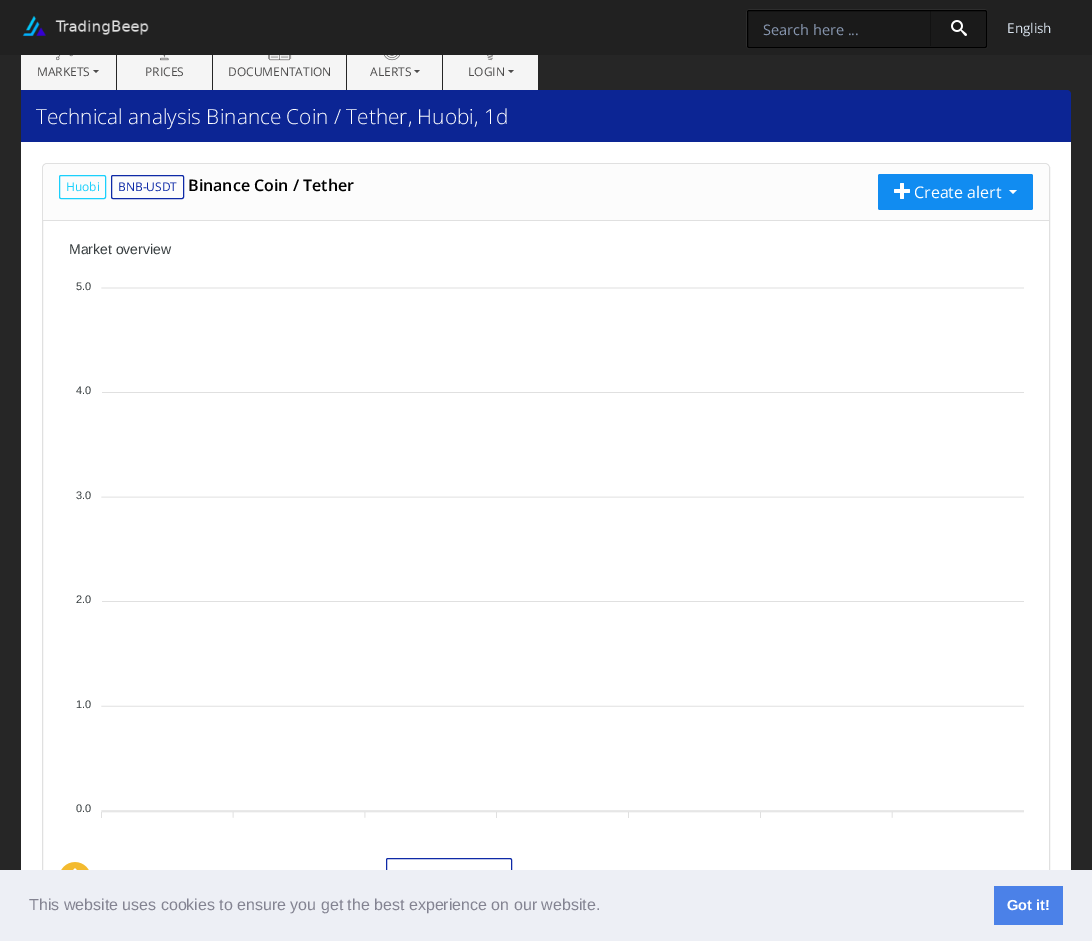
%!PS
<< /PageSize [1092 941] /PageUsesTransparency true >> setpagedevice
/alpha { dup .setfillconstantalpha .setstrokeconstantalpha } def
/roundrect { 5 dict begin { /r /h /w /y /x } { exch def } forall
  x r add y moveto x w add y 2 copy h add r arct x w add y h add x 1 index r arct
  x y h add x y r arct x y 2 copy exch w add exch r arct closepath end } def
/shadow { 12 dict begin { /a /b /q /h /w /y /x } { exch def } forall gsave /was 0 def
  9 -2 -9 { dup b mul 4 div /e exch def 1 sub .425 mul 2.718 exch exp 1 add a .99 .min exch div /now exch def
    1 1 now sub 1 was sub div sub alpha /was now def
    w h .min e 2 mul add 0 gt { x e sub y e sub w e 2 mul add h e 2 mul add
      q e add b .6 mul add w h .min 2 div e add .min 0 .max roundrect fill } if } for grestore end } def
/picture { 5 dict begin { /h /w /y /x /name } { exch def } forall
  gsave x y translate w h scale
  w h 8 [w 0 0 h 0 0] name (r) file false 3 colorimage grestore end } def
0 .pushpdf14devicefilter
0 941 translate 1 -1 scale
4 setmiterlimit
0.149 setgray
0 0 1092 941 rectfill
0.129 setgray
0 0 1092 55 rectfill
(img1.rgb) 22 15 127 22 picture
gsave
newpath 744 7 moveto 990 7 lineto 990 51 lineto 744 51 lineto closepath 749 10 moveto 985 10 lineto 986 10 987 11 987 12 curveto 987 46 lineto 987 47 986 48 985 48 curveto 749 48 lineto 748 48 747 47 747 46 curveto 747 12 lineto 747 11 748 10 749 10 curveto closepath eoclip newpath
0.302 0.298 0.298 setrgbcolor
747 10 240 38 2 0.5 1 shadow
grestore
0.2 alpha
0 setgray
747.5 10.5 239 37 1.5 roundrect fill
1 alpha
747.5 10.5 239 37 1.5 roundrect stroke
/OpenSans-Regular [14.5 0 0 -14.5 0 0] selectfont
0.529 0.588 0.686 setrgbcolor
763 35 moveto (Search here ...) show
0.3 alpha
0 setgray
930 10 1 36 rectfill
1 alpha
(img2.rgb) 951 20 16 16 picture
/OpenSans-Regular [13.5 0 0 -13.5 0 0] selectfont
0.855 0.894 0.937 setrgbcolor
1007 33 moveto (English) show
0.961 setgray
21 55 95 35 rectfill
(img3.rgb) 56 55 17 6 picture
/OpenSans-Regular [12 0 0 -12 0 0] selectfont
0.302 0.298 0.298 setrgbcolor
37 76 moveto (MARKETS) show
newpath 93 70 moveto 99 70 lineto 96 73 lineto closepath fill
0.961 setgray
117 55 95 35 rectfill
(img4.rgb) 160 55 9 6 picture
0.302 0.298 0.298 setrgbcolor
145 76 moveto (PRICES) show
0.961 setgray
213 55 133 35 rectfill
(img5.rgb) 268 55 24 6 picture
0.302 0.298 0.298 setrgbcolor
228 76 moveto (DOCUMENTATION) show
0.961 setgray
347 55 95 35 rectfill
(img6.rgb) 384 55 16 6 picture
0.302 0.298 0.298 setrgbcolor
370 76 moveto (ALERTS) show
newpath 414 70 moveto 420 70 lineto 417 73 lineto closepath fill
0.961 setgray
443 55 95 35 rectfill
(img7.rgb) 487 55 6 6 picture
0.302 0.298 0.298 setrgbcolor
468 76 moveto (LOGIN) show
newpath 508 70 moveto 514 70 lineto 511 73 lineto closepath fill
0.047 0.145 0.58 setrgbcolor
newpath 21 90 moveto 1067 90 lineto 1069 90 1071 92 1071 94 curveto 1071 142 lineto 21 142 lineto closepath fill
/OpenSans-Light [20.8 0 0 -20.8 0 0] selectfont
1 setgray
36 124 moveto (Technical analysis Binance Coin / Tether, Huobi, 1d) show
21 142 1050 728 rectfill
0.878 setgray
42.5 163.5 1007 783 4.5 roundrect stroke
0.988 setgray
newpath 48 164 moveto 1044 164 lineto 1047 164 1049 166 1049 169 curveto 1049 221 lineto 43 221 lineto 43 169 lineto 43 166 45 164 48 164 curveto closepath fill
0.878 setgray
43 220 1006 1 rectfill
0.102 0.816 0.988 setrgbcolor
59.5 175.5 46 23 1.5 roundrect stroke
/OpenSans-Regular [12 0 0 -12 0 0] selectfont
66 191 moveto (Huobi) show
0.055 0.165 0.655 setrgbcolor
111.5 175.5 72 23 1.5 roundrect stroke
118 191 moveto (BNB-USDT) show
/OpenSans-SemiBold [16 0 0 -16 0 0] selectfont
0 setgray
188 191 moveto (Binance Coin / Tether) show
0.067 0.549 0.945 setrgbcolor
878 174 155 36 2 roundrect fill
(img8.rgb) 894 183 16 16 picture
/OpenSans-Regular [16 0 0 -16 0 0] selectfont
1 setgray
914 198 moveto (Create alert) show
newpath 1009 190 moveto 1017 190 lineto 1013 194 lineto closepath fill
/LiberationSans-Regular [14 0 0 -14 0 0] selectfont
0.216 0.239 0.247 setrgbcolor
69 254 moveto (Market overview) show
/LiberationSans-Regular [11 0 0 -11 0 0] selectfont
76 290 moveto (5.0) show
(img9.rgb) 101 287 923 531 picture
76 394 moveto (4.0) show
76 499 moveto (3.0) show
76 603 moveto (2.0) show
76 708 moveto (1.0) show
76 812 moveto (0.0) show
(img10.rgb) 61 862 28 8 picture
0.055 0.165 0.655 setrgbcolor
386.5 858.5 125 39 1.5 roundrect stroke
0.929 0.937 0.961 setrgbcolor
0 870 1092 71 rectfill
/LiberationSans-Regular [16 0 0 -16 0 0] selectfont
0.514 0.514 0.569 setrgbcolor
29 910 moveto (This website uses cookies to ensure you get the best experience on our website.) show
0.294 0.506 0.91 setrgbcolor
994 886 69 39 rectfill
/LiberationSans-Bold [14.5 0 0 -14.5 0 0] selectfont
1 setgray
1007 910 moveto (Got it!) show
.poppdf14devicefilter showpage
